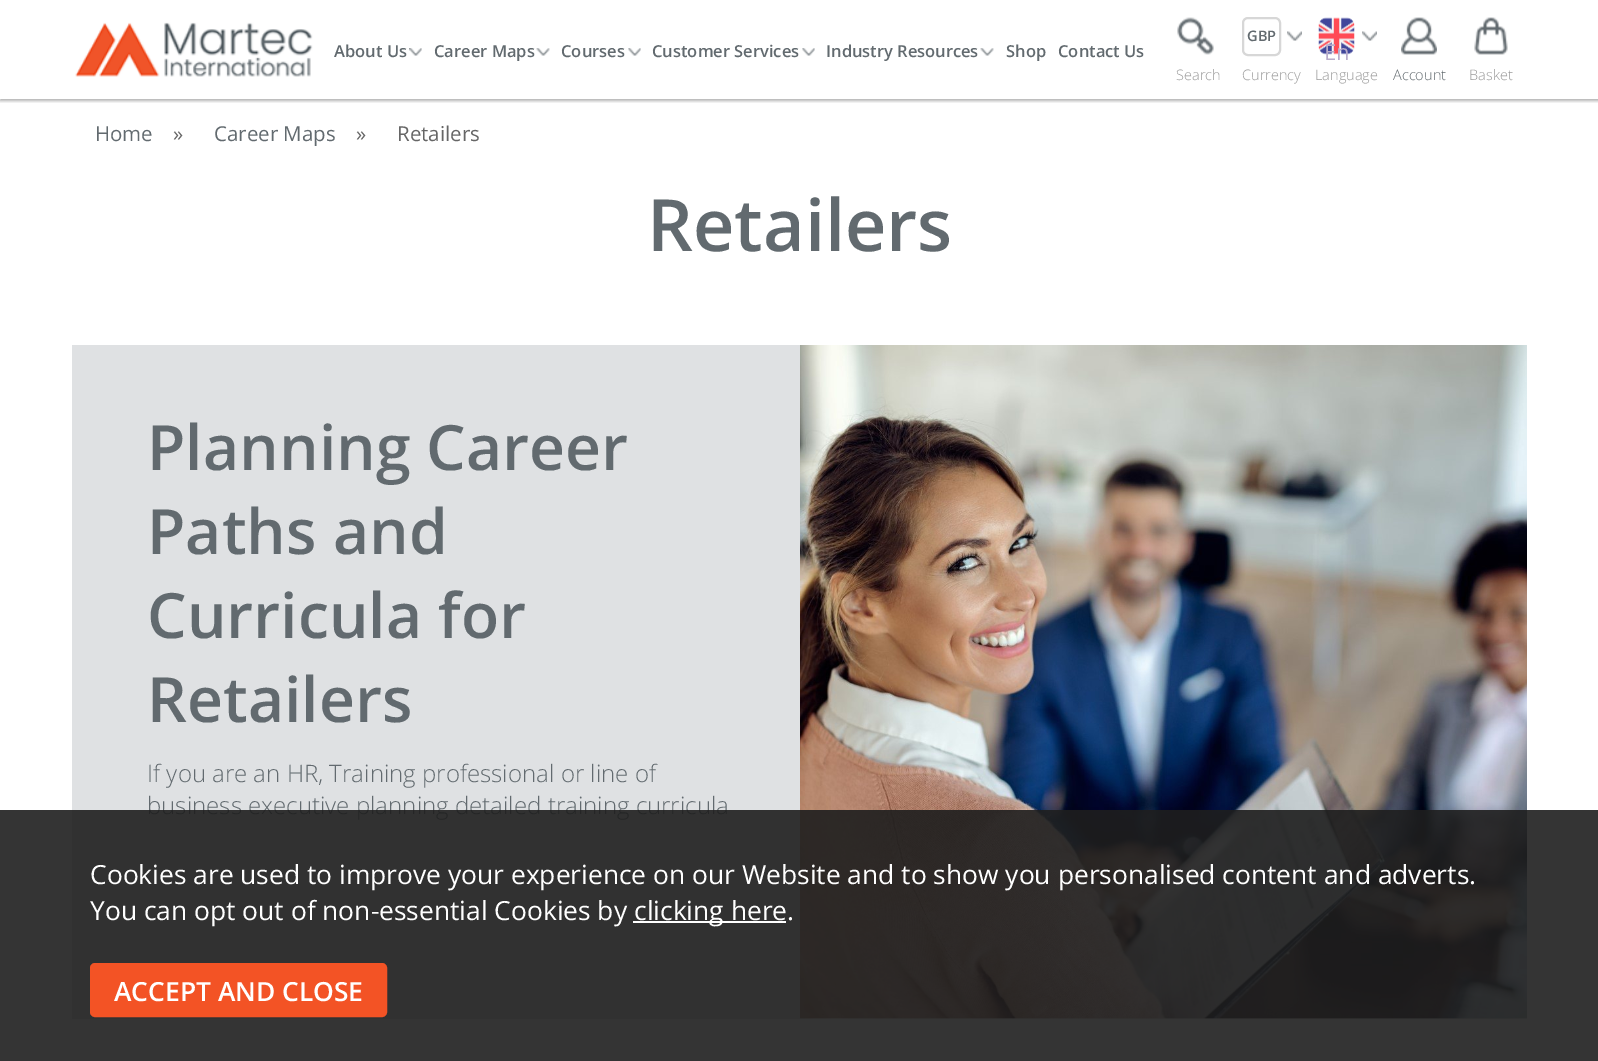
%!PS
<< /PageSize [1598 1061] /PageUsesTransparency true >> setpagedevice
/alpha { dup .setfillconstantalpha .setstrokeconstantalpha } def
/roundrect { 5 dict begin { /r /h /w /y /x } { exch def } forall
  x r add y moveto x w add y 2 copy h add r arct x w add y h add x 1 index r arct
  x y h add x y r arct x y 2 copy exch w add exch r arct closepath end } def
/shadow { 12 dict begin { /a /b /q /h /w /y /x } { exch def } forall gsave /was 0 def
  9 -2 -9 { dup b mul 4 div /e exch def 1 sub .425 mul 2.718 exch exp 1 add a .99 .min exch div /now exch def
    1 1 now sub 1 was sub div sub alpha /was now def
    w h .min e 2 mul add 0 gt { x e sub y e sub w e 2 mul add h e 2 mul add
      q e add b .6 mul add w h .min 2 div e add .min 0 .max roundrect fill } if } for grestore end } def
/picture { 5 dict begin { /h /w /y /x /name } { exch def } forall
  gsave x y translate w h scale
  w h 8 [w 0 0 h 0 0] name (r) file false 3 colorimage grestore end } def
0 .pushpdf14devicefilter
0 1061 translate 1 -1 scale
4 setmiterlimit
1 setgray
0 0 1598 1061 rectfill
gsave
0 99 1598 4 rectclip
0 setgray
0 2 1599 99 0 1.5 0.3 shadow
grestore
(img1.rgb) 75 22 238 55 picture
/OpenSans-SemiBold [16.5 0 0 -16.5 0 0] selectfont
0.384 0.416 0.435 setrgbcolor
334 57 moveto (About Us) show
(img2.rgb) 409 48 13 8 picture
434 57 moveto (Career Maps) show
(img3.rgb) 536 48 14 8 picture
561 57 moveto (Courses) show
(img4.rgb) 628 48 13 8 picture
652 57 moveto (Customer Services) show
(img4.rgb) 802 48 13 8 picture
826 57 moveto (Industry Resources) show
(img3.rgb) 980 48 14 8 picture
1006 57 moveto (Shop) show
1058 57 moveto (Contact Us) show
(img5.rgb) 1177 17 37 38 picture
/OpenSans-Light [14.5 0 0 -14.5 0 0] selectfont
0.6 setgray
1176 80 moveto (Search) show
0.843 setgray
2 setlinewidth
1243 18 37 37 5 roundrect stroke
/OpenSans-SemiBold [14.5 0 0 -14.5 0 0] selectfont
0.384 0.416 0.435 setrgbcolor
1247 41 moveto (GBP) show
(img6.rgb) 1287 31 15 10 picture
/OpenSans-Light [14.5 0 0 -14.5 0 0] selectfont
0.6 setgray
1242 80 moveto (Currency) show
(img7.rgb) 1318 17 37 38 picture
(img6.rgb) 1362 31 15 10 picture
/OpenSans-Regular [22 0 0 -22 0 0] selectfont
0.722 0.675 0.796 setrgbcolor
1324 60 moveto (En) show
/OpenSans-Light [14.5 0 0 -14.5 0 0] selectfont
0.6 setgray
1315 80 moveto (Language) show
(img8.rgb) 1401 17 36 38 picture
0.384 0.416 0.435 setrgbcolor
1393 80 moveto (Account) show
(img9.rgb) 1474 17 34 38 picture
0.6 setgray
1469 80 moveto (Basket) show
/OpenSans-Regular [20.5 0 0 -20.5 0 0] selectfont
0.384 0.416 0.435 setrgbcolor
95 141 moveto (Home) show
0.4 setgray
173 141 moveto (») show
0.384 0.416 0.435 setrgbcolor
214 141 moveto (Career Maps) show
0.4 setgray
356 141 moveto (») show
397 141 moveto (Retailers) show
/OpenSans-SemiBold [72 0 0 -72 0 0] selectfont
0.384 0.416 0.435 setrgbcolor
647 251 moveto (Retailers) show
0.875 0.882 0.89 setrgbcolor
72 345 728 674 rectfill
/OpenSans-SemiBold [62.5 0 0 -62.5 0 0] selectfont
0.384 0.416 0.435 setrgbcolor
147 470 moveto (Planning Career) show
147 554 moveto (Paths and) show
147 638 moveto (Curricula for) show
147 722 moveto (Retailers) show
/OpenSans-Light [24 0 0 -24 0 0] selectfont
147 782 moveto (If you are an HR, Training professional or line of) show
147 814 moveto (business executive planning detailed training curricula) show
0.969 setgray
800 1018 727 1 rectfill
(img10.rgb) 800 345 727 674 picture
0.9 alpha
0.118 setgray
0 810 1598 251 rectfill
/OpenSans-Regular [26.4 0 0 -26.4 0 0] selectfont
1 alpha
1 setgray
90 884 moveto (Cookies are used to improve your experience on our Website and to show you personalised content and adverts.) show
90 920 moveto (You can opt out of non-essential Cookies by) show
633 921 153 2 rectfill
634 920 moveto (clicking here.) show
0.953 0.325 0.145 setrgbcolor
91 964 295 52 4 roundrect gsave fill grestore
stroke
/OpenSans-SemiBold [26.4 0 0 -26.4 0 0] selectfont
1 setgray
114 1001 moveto (ACCEPT AND CLOSE) show
.poppdf14devicefilter showpage
